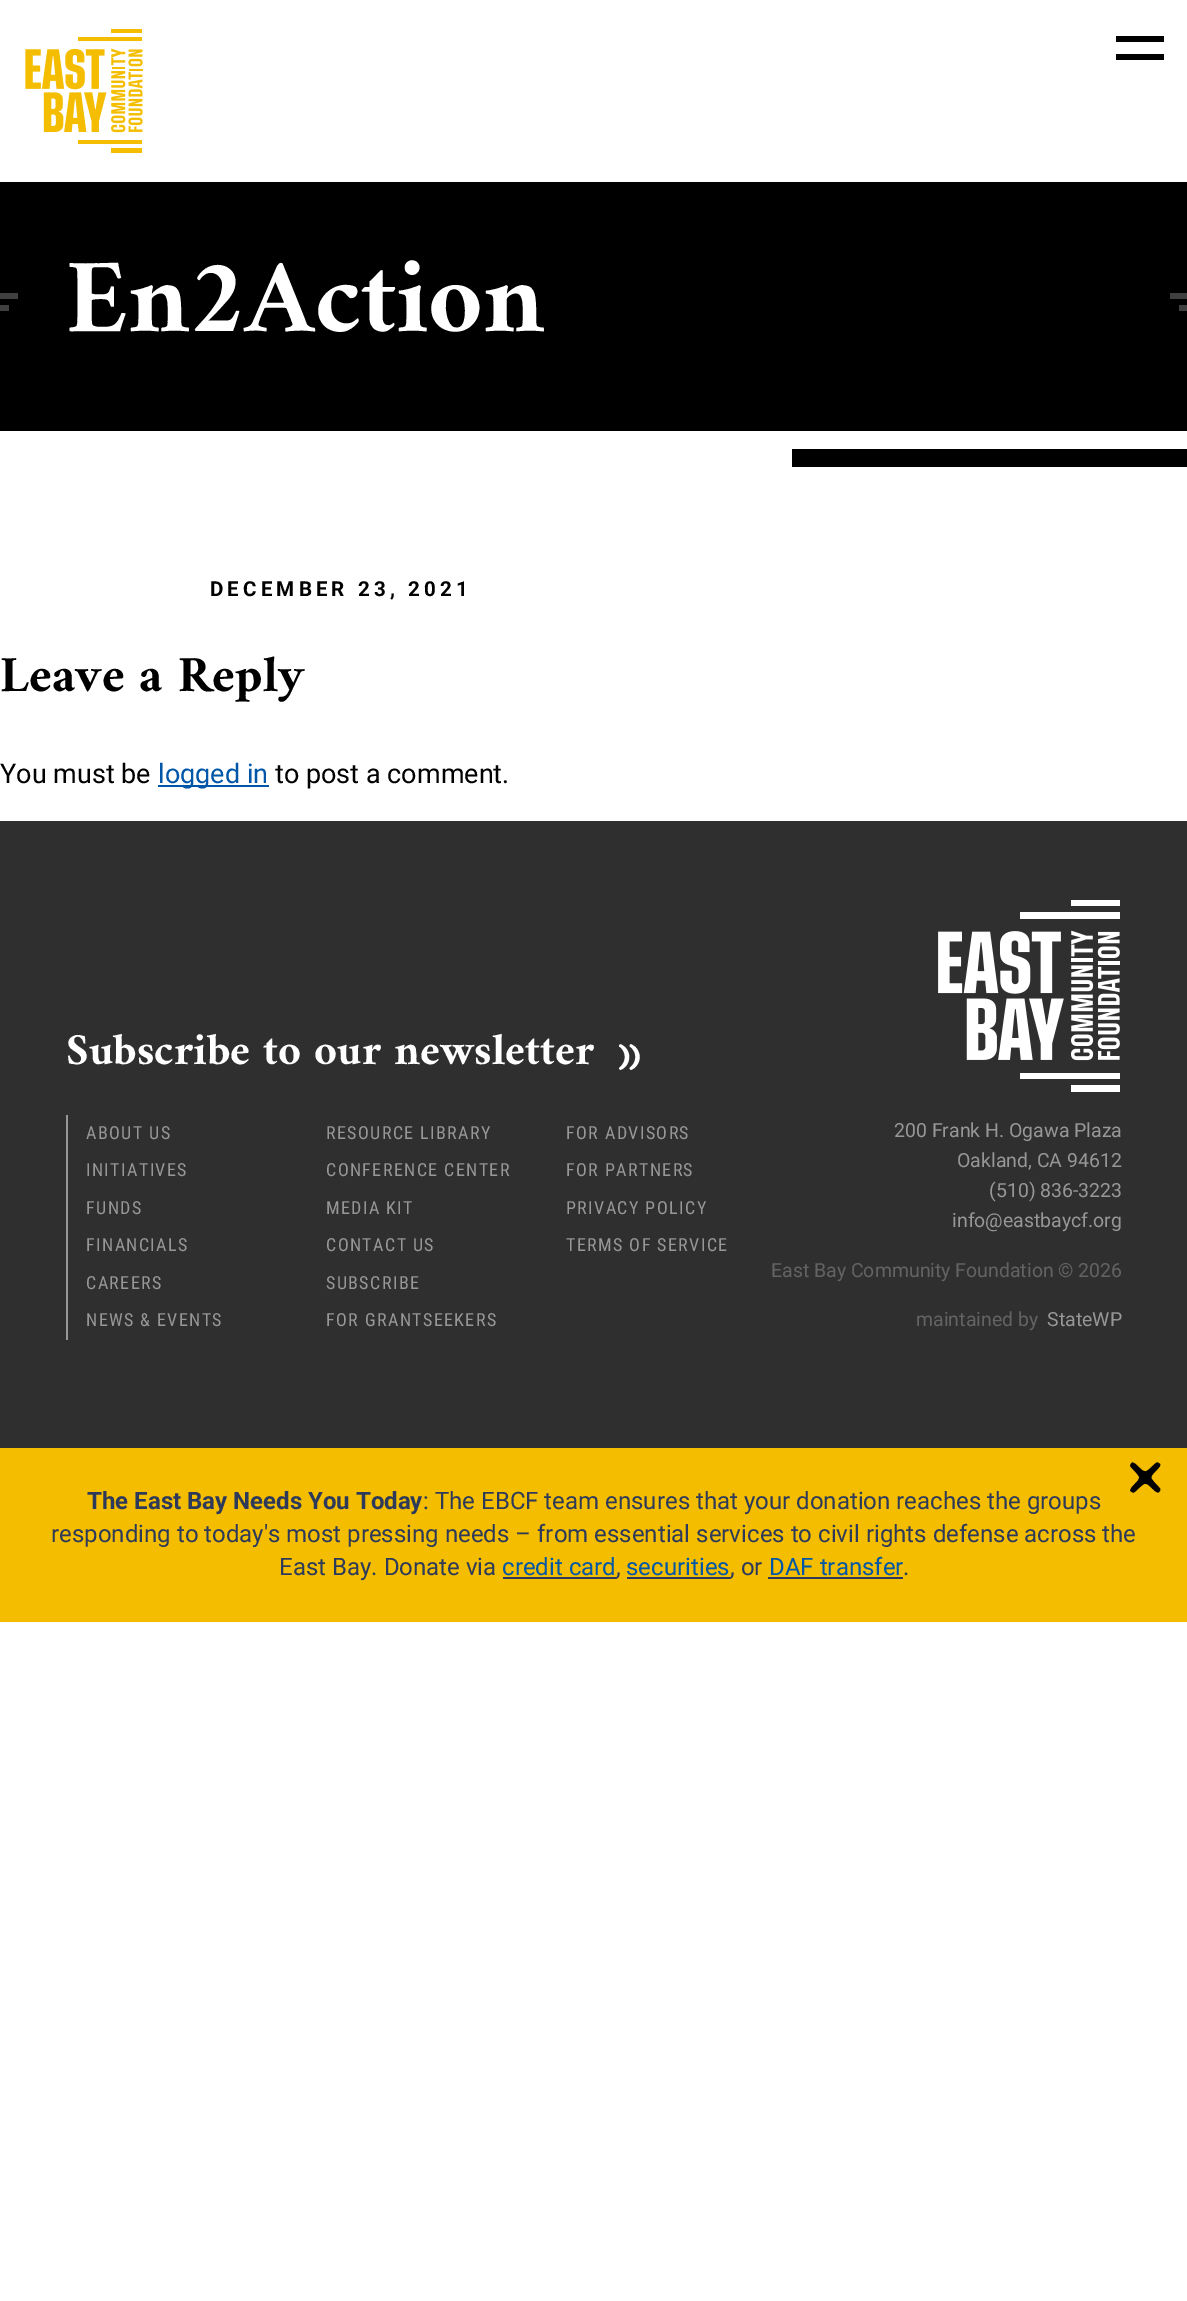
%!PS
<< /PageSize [1187 2301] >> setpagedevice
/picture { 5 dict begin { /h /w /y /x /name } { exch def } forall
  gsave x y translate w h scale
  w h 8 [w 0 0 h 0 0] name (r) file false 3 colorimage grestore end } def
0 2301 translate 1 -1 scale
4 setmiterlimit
1 setgray
0 0 1187 2301 rectfill
(img1.rgb) 25 29 118 124 picture
0 setgray
1116 36 48 6 rectfill
1116 54 48 6 rectfill
0 182 1187 249 rectfill
/Amiri-Bold [105.5 0 0 -105.5 0 0] selectfont
1 setgray
66 331 moveto (En2Action) show
0.251 setgray
1170 293 17 6 rectfill
0 293 18 6 rectfill
1179 305 8 6 rectfill
0 305 9 6 rectfill
0 setgray
792 449 395 18 rectfill
/Roboto-Bold [20.6 0 0 -20.6 0 0] selectfont
210 596 moveto 4.1 0 (DECEMBER 23, 2021) ashow
/Amiri-Bold [51 0 0 -51 0 0] selectfont
0 691 moveto (Leave a Reply) show
/Roboto-Regular [27 0 0 -27 0 0] selectfont
0 783 moveto (You must be) show
0 0.341 0.659 setrgbcolor
158 785 111 2 rectfill
158 783 moveto (logged in) show
0 setgray
275 783 moveto (to post a comment.) show
0.184 setgray
0 821 1187 627 rectfill
/Amiri-Bold [44.5 0 0 -44.5 0 0] selectfont
1 setgray
66 1064 moveto (Subscribe to our newsletter) show
/Amiri-Bold [60 0 0 -60 0 0] selectfont
617 1067 moveto (») show
0.592 setgray
66 1115 2 225 rectfill
/RobotoCondensed-Regular [18 0 0 -18 0 0] selectfont
86 1139 moveto 1.4 0 (ABOUT US) ashow
326 1139 moveto 1.4 0 (RESOURCE LIBRARY) ashow
566 1139 moveto 1.4 0 (FOR ADVISORS) ashow
86 1176 moveto 1.4 0 (INITIATIVES) ashow
326 1176 moveto 1.4 0 (CONFERENCE CENTER) ashow
566 1176 moveto 1.4 0 (FOR PARTNERS) ashow
86 1214 moveto 1.4 0 (FUNDS) ashow
326 1214 moveto 1.4 0 (MEDIA KIT) ashow
566 1214 moveto 1.4 0 (PRIVACY POLICY) ashow
86 1251 moveto 1.4 0 (FINANCIALS) ashow
326 1251 moveto 1.4 0 (CONTACT US) ashow
566 1251 moveto 1.4 0 (TERMS OF SERVICE) ashow
86 1289 moveto 1.4 0 (CAREERS) ashow
326 1289 moveto 1.4 0 (SUBSCRIBE) ashow
86 1326 moveto 1.4 0 (NEWS & EVENTS) ashow
326 1326 moveto 1.4 0 (FOR GRANTSEEKERS) ashow
(img2.rgb) 938 900 182 192 picture
/Roboto-Regular [19.5 0 0 -19.5 0 0] selectfont
894 1137 moveto (200 Frank H. Ogawa Plaza) show
957 1167 moveto (Oakland, CA 94612) show
989 1197 moveto (\(510\) 836-3223) show
952 1227 moveto (info@eastbaycf.org) show
0.388 setgray
771 1277 moveto (East Bay Community Foundation © 2026) show
916 1326 moveto (maintained by) show
0.592 setgray
1047 1326 moveto (StateWP) show
0.957 0.741 0 setrgbcolor
0 1448 1187 174 rectfill
(img3.rgb) 1130 1462 31 31 picture
/Roboto-Bold [24 0 0 -24 0 0] selectfont
0.176 0.227 0.349 setrgbcolor
87 1509 moveto (The East Bay Needs You Today) show
/Roboto-Regular [24 0 0 -24 0 0] selectfont
423 1509 moveto (: The EBCF team ensures that your donation reaches the groups) show
51 1542 moveto (responding to today's most pressing needs – from essential services to civil rights defense across the) show
279 1575 moveto (East Bay. Donate via) show
0 0.341 0.659 setrgbcolor
502 1575 moveto (credit card) show
0.176 0.227 0.349 setrgbcolor
503 1577 114 2 rectfill
616 1575 moveto (,) show
0 0.341 0.659 setrgbcolor
626 1575 moveto (securities) show
0.176 0.227 0.349 setrgbcolor
627 1577 104 2 rectfill
730 1575 moveto (, or) show
0 0.341 0.659 setrgbcolor
769 1575 moveto (DAF transfer) show
0.176 0.227 0.349 setrgbcolor
768 1577 135 2 rectfill
903 1575 moveto (.) show
showpage
